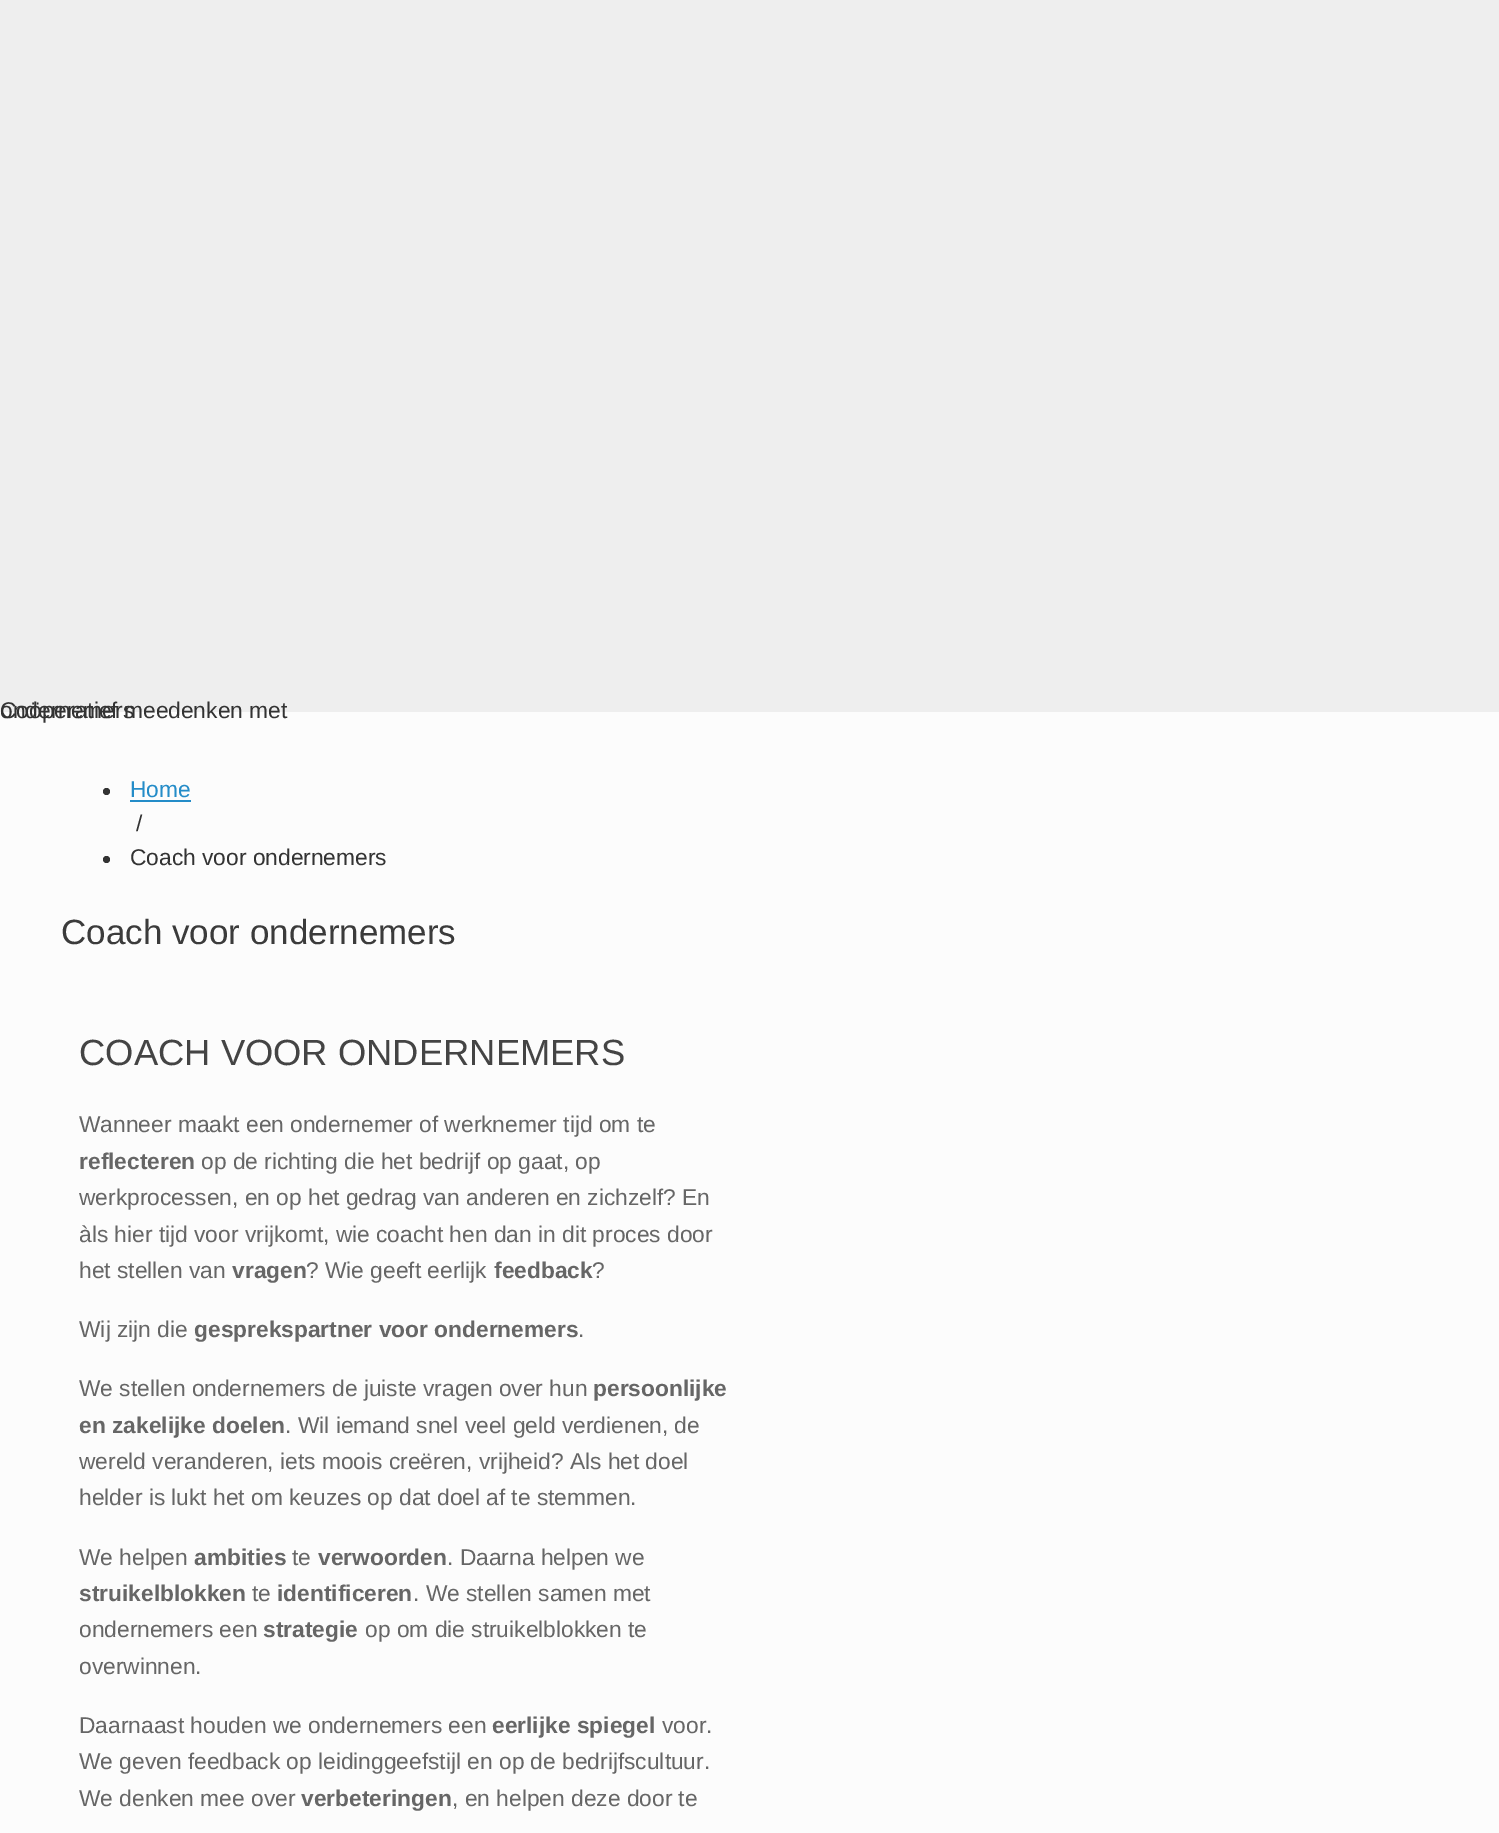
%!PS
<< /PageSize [1499 1833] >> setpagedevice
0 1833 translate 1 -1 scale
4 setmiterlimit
0.933 setgray
0 0 1499 1833 rectfill
0.988 setgray
0 712 1499 1121 rectfill
/LiberationSans-Regular [22.75 0 0 -22.75 0 0] selectfont
0.2 setgray
0 718 moveto (Coöperatief meedenken met) show
0 718 moveto (ondernemers) show
newpath 106.5 791.5 3.5 0 360 arc closepath fill
0.141 0.549 0.784 setrgbcolor
130 797 moveto (Home) show
130 800 61 2 rectfill
0.2 setgray
136 831 moveto (/) show
newpath 106.5 859.5 3.5 0 360 arc closepath fill
130 865 moveto (Coach voor ondernemers) show
/LiberationSans-Regular [35 0 0 -35 0 0] selectfont
0.231 setgray
61 944 moveto (Coach voor ondernemers) show
/LiberationSans-Regular [36.4 0 0 -36.4 0 0] selectfont
0.267 setgray
79 1065 moveto (COACH VOOR ONDERNEMERS) show
/LiberationSans-Regular [22.75 0 0 -22.75 0 0] selectfont
0.4 setgray
79 1132 moveto (Wanneer maakt een ondernemer of werknemer tijd om te) show
/LiberationSans-Bold [22.75 0 0 -22.75 0 0] selectfont
79 1169 moveto (reflecteren) show
/LiberationSans-Regular [22.75 0 0 -22.75 0 0] selectfont
201 1169 moveto (op de richting die het bedrijf op gaat, op) show
79 1205 moveto (werkprocessen, en op het gedrag van anderen en zichzelf? En) show
79 1242 moveto (àls hier tijd voor vrijkomt, wie coacht hen dan in dit proces door) show
79 1278 moveto (het stellen van) show
/LiberationSans-Bold [22.75 0 0 -22.75 0 0] selectfont
232 1278 moveto (vragen) show
/LiberationSans-Regular [22.75 0 0 -22.75 0 0] selectfont
306 1278 moveto (? Wie geeft eerlijk) show
/LiberationSans-Bold [22.75 0 0 -22.75 0 0] selectfont
494 1278 moveto (feedback) show
/LiberationSans-Regular [22.75 0 0 -22.75 0 0] selectfont
592 1278 moveto (?) show
79 1337 moveto (Wij zijn die) show
/LiberationSans-Bold [22.75 0 0 -22.75 0 0] selectfont
194 1337 moveto (gesprekspartner voor ondernemers) show
/LiberationSans-Regular [22.75 0 0 -22.75 0 0] selectfont
578 1337 moveto (.) show
79 1396 moveto (We stellen ondernemers de juiste vragen over hun) show
/LiberationSans-Bold [22.75 0 0 -22.75 0 0] selectfont
593 1396 moveto (persoonlijke) show
79 1433 moveto (en zakelijke doelen) show
/LiberationSans-Regular [22.75 0 0 -22.75 0 0] selectfont
285 1433 moveto (. Wil iemand snel veel geld verdienen, de) show
79 1469 moveto (wereld veranderen, iets moois creëren, vrijheid? Als het doel) show
79 1505 moveto (helder is lukt het om keuzes op dat doel af te stemmen.) show
79 1565 moveto (We helpen) show
/LiberationSans-Bold [22.75 0 0 -22.75 0 0] selectfont
194 1565 moveto (ambities) show
/LiberationSans-Regular [22.75 0 0 -22.75 0 0] selectfont
292 1565 moveto (te) show
/LiberationSans-Bold [22.75 0 0 -22.75 0 0] selectfont
318 1565 moveto (verwoorden) show
/LiberationSans-Regular [22.75 0 0 -22.75 0 0] selectfont
447 1565 moveto (. Daarna helpen we) show
/LiberationSans-Bold [22.75 0 0 -22.75 0 0] selectfont
79 1601 moveto (struikelblokken) show
/LiberationSans-Regular [22.75 0 0 -22.75 0 0] selectfont
252 1601 moveto (te) show
/LiberationSans-Bold [22.75 0 0 -22.75 0 0] selectfont
277 1601 moveto (identificeren) show
/LiberationSans-Regular [22.75 0 0 -22.75 0 0] selectfont
413 1601 moveto (. We stellen samen met) show
79 1637 moveto (ondernemers een) show
/LiberationSans-Bold [22.75 0 0 -22.75 0 0] selectfont
263 1637 moveto (strategie) show
/LiberationSans-Regular [22.75 0 0 -22.75 0 0] selectfont
365 1637 moveto (op om die struikelblokken te) show
79 1674 moveto (overwinnen.) show
79 1733 moveto (Daarnaast houden we ondernemers een) show
/LiberationSans-Bold [22.75 0 0 -22.75 0 0] selectfont
492 1733 moveto (eerlijke spiegel) show
/LiberationSans-Regular [22.75 0 0 -22.75 0 0] selectfont
662 1733 moveto (voor.) show
79 1769 moveto (We geven feedback op leidinggeefstijl en op de bedrijfscultuur.) show
79 1806 moveto (We denken mee over) show
/LiberationSans-Bold [22.75 0 0 -22.75 0 0] selectfont
301 1806 moveto (verbeteringen) show
/LiberationSans-Regular [22.75 0 0 -22.75 0 0] selectfont
452 1806 moveto (, en helpen deze door te) show
showpage
